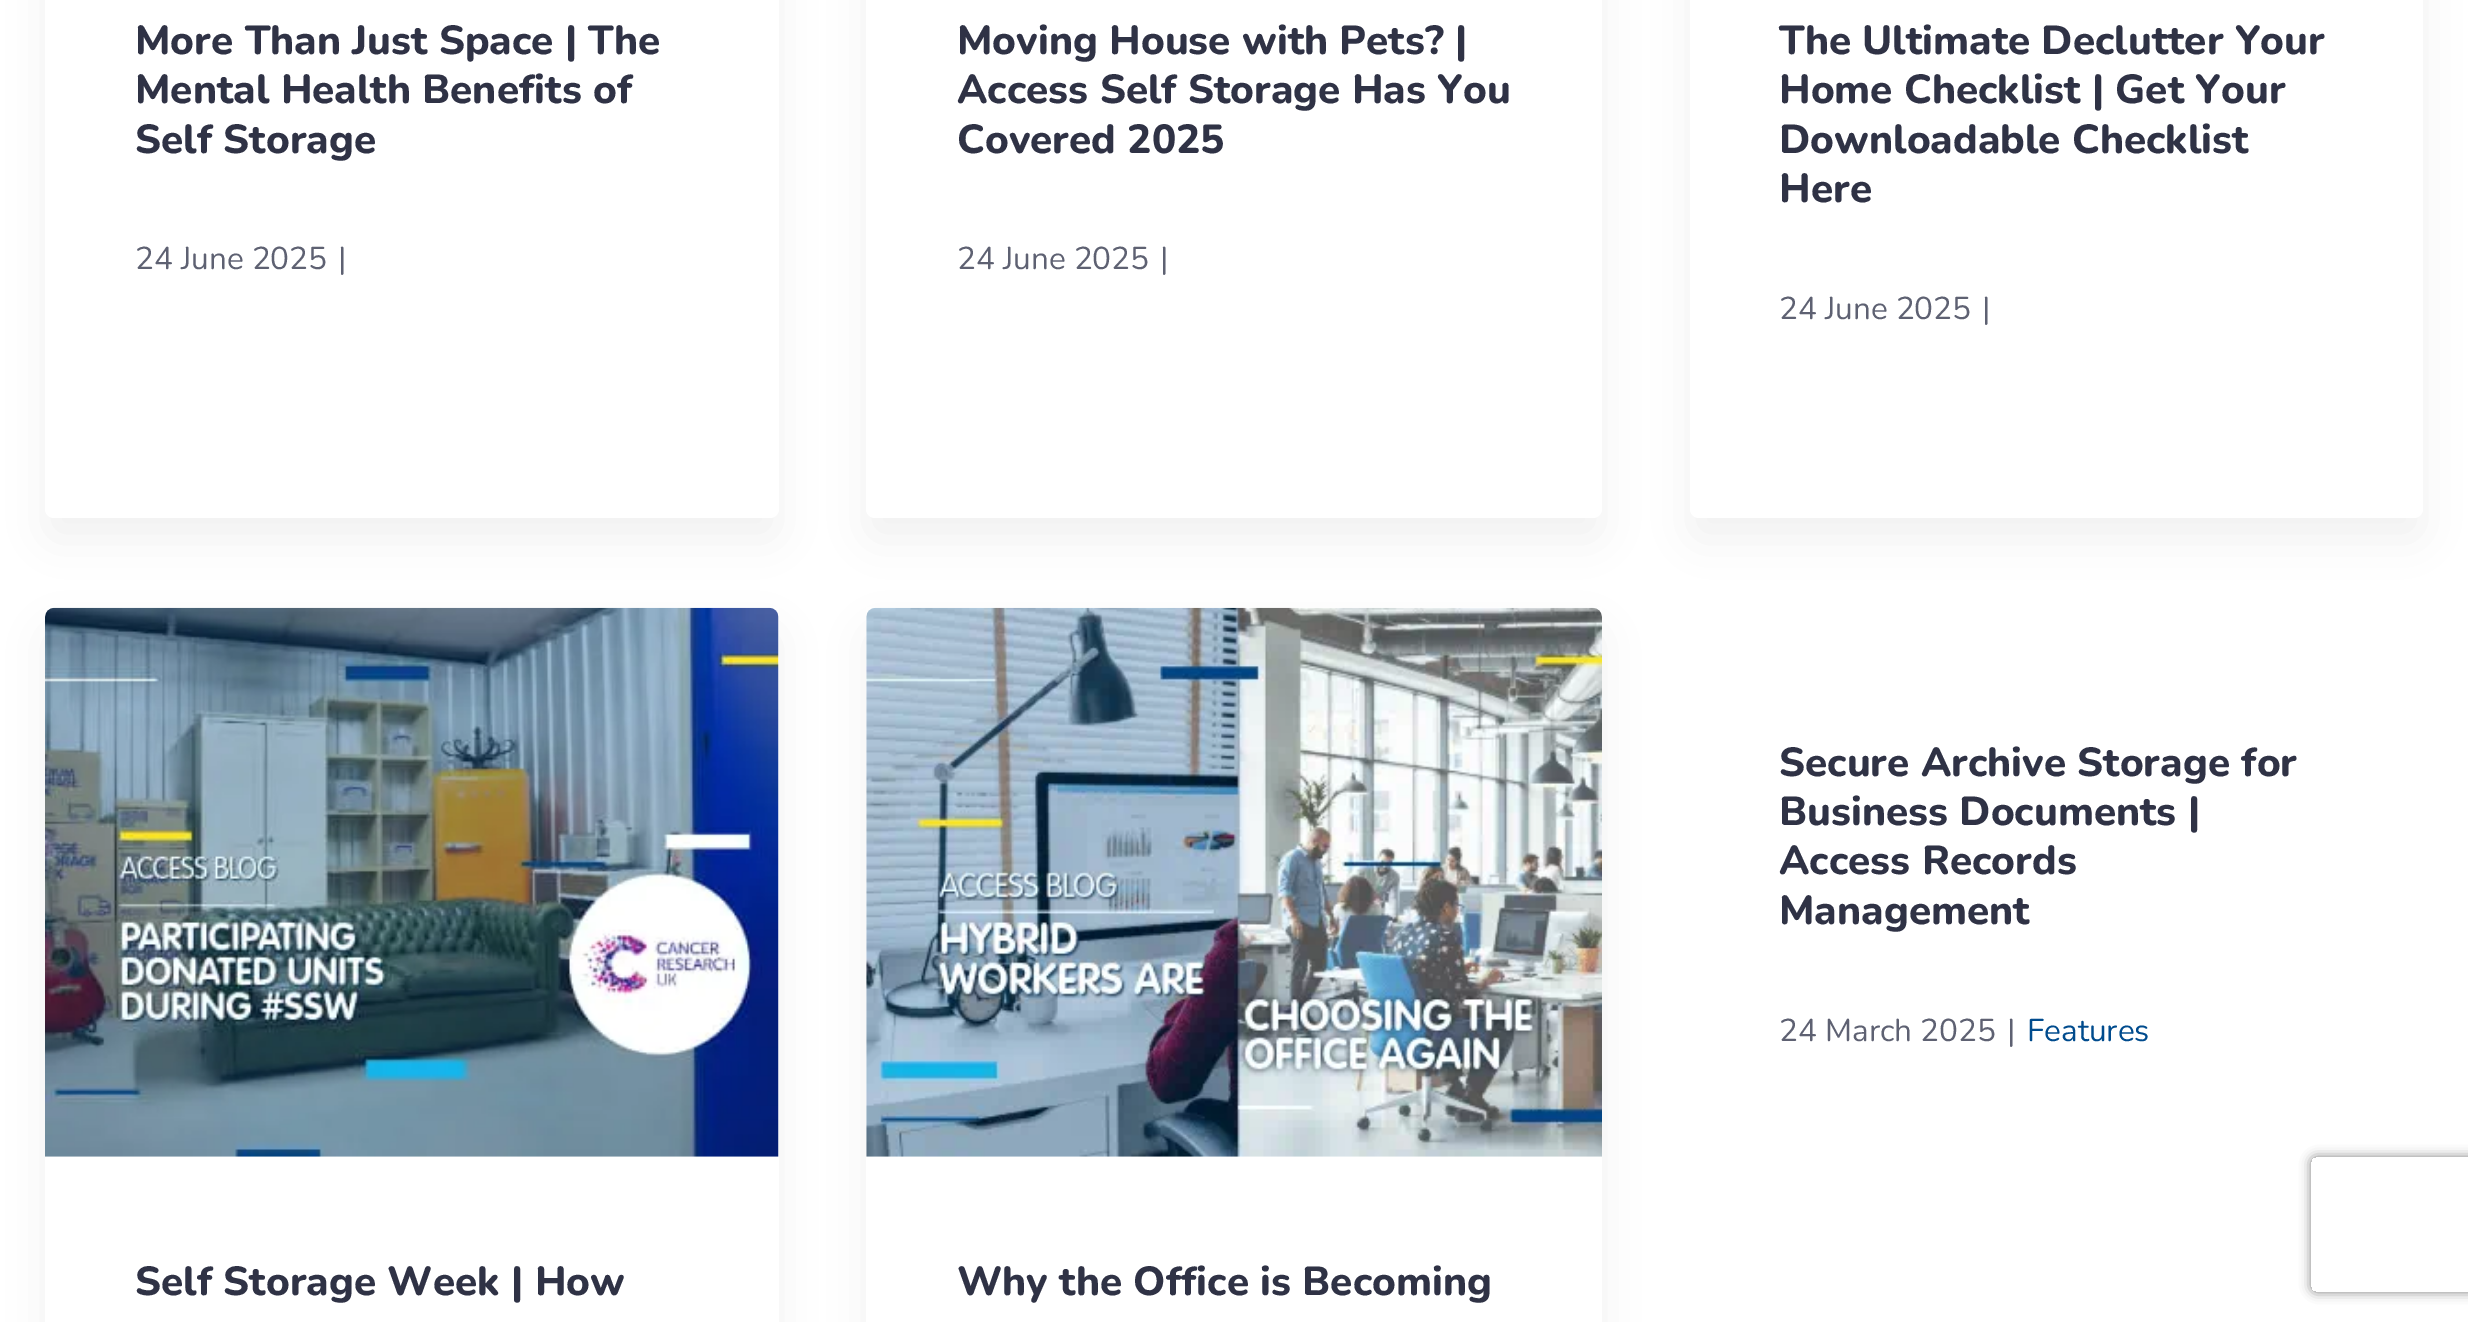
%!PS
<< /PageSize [2468 1322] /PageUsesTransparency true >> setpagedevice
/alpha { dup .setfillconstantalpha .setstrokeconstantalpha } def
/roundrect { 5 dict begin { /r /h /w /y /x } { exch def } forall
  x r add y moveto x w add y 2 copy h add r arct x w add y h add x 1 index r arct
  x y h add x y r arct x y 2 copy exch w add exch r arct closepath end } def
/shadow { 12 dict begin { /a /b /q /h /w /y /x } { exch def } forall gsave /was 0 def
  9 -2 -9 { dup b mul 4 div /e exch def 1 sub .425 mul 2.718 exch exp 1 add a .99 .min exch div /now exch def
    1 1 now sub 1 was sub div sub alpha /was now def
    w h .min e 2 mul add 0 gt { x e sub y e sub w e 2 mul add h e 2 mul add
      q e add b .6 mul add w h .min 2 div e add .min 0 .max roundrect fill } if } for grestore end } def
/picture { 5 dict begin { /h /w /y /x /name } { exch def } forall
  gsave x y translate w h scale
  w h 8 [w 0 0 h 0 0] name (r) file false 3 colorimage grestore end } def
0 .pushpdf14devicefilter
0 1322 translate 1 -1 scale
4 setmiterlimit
1 setgray
0 0 2468 1322 rectfill
0 setgray
45 -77 734 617 9 22.5 0.05 shadow
1 setgray
45 -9 734 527 9 roundrect fill
/Nunito-ExtraBold [40.5 0 0 -40.5 0 0] selectfont
0.184 0.196 0.271 setrgbcolor
135 54 moveto (More Than Just Space | The) show
135 103 moveto (Mental Health Benefits of) show
135 153 moveto (Self Storage) show
/Nunito-Regular [31.5 0 0 -31.5 0 0] selectfont
0.369 0.38 0.447 setrgbcolor
135 269 moveto (24 June 2025) show
338 269 moveto (|) show
0 setgray
866 -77 736 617 9 22.5 0.05 shadow
1 setgray
866 -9 736 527 9 roundrect fill
/Nunito-ExtraBold [40.5 0 0 -40.5 0 0] selectfont
0.184 0.196 0.271 setrgbcolor
957 54 moveto (Moving House with Pets? |) show
957 103 moveto (Access Self Storage Has You) show
957 153 moveto (Covered 2025) show
/Nunito-Regular [31.5 0 0 -31.5 0 0] selectfont
0.369 0.38 0.447 setrgbcolor
957 269 moveto (24 June 2025) show
1160 269 moveto (|) show
0 setgray
1690 -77 733 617 9 22.5 0.05 shadow
1 setgray
1690 -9 733 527 9 roundrect fill
/Nunito-ExtraBold [40.5 0 0 -40.5 0 0] selectfont
0.184 0.196 0.271 setrgbcolor
1779 54 moveto (The Ultimate Declutter Your) show
1779 103 moveto (Home Checklist | Get Your) show
1779 153 moveto (Downloadable Checklist) show
1779 202 moveto (Here) show
/Nunito-Regular [31.5 0 0 -31.5 0 0] selectfont
0.369 0.38 0.447 setrgbcolor
1779 319 moveto (24 June 2025) show
1982 319 moveto (|) show
/Nunito-ExtraBold [40.5 0 0 -40.5 0 0] selectfont
0.184 0.196 0.271 setrgbcolor
1779 776 moveto (Secure Archive Storage for) show
1779 825 moveto (Business Documents |) show
1779 874 moveto (Access Records) show
1779 924 moveto (Management) show
/Nunito-Regular [31.5 0 0 -31.5 0 0] selectfont
0.369 0.38 0.447 setrgbcolor
1779 1041 moveto (24 March 2025) show
2007 1041 moveto (|) show
0 0.294 0.553 setrgbcolor
2027 1041 moveto (Features) show
0 setgray
45 630 734 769 9 22.5 0.05 shadow
1 setgray
45 608 734 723 9 roundrect fill
(img1.rgb) 45 607 734 550 picture
/Nunito-ExtraBold [40.5 0 0 -40.5 0 0] selectfont
0.184 0.196 0.271 setrgbcolor
135 1295 moveto (Self Storage Week | How) show
0 setgray
866 630 736 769 9 22.5 0.05 shadow
1 setgray
866 608 736 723 9 roundrect fill
(img2.rgb) 866 607 736 550 picture
0.184 0.196 0.271 setrgbcolor
957 1295 moveto (Why the Office is Becoming) show
gsave
newpath 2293 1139 moveto 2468 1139 lineto 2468 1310 lineto 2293 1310 lineto closepath 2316 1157 moveto 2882 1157 lineto 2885 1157 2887 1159 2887 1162 curveto 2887 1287 lineto 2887 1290 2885 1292 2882 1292 curveto 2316 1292 lineto 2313 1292 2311 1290 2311 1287 curveto 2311 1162 lineto 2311 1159 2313 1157 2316 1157 curveto closepath eoclip newpath
0.502 setgray
2311 1157 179 135 5 5.5 1 shadow
grestore
.poppdf14devicefilter showpage
